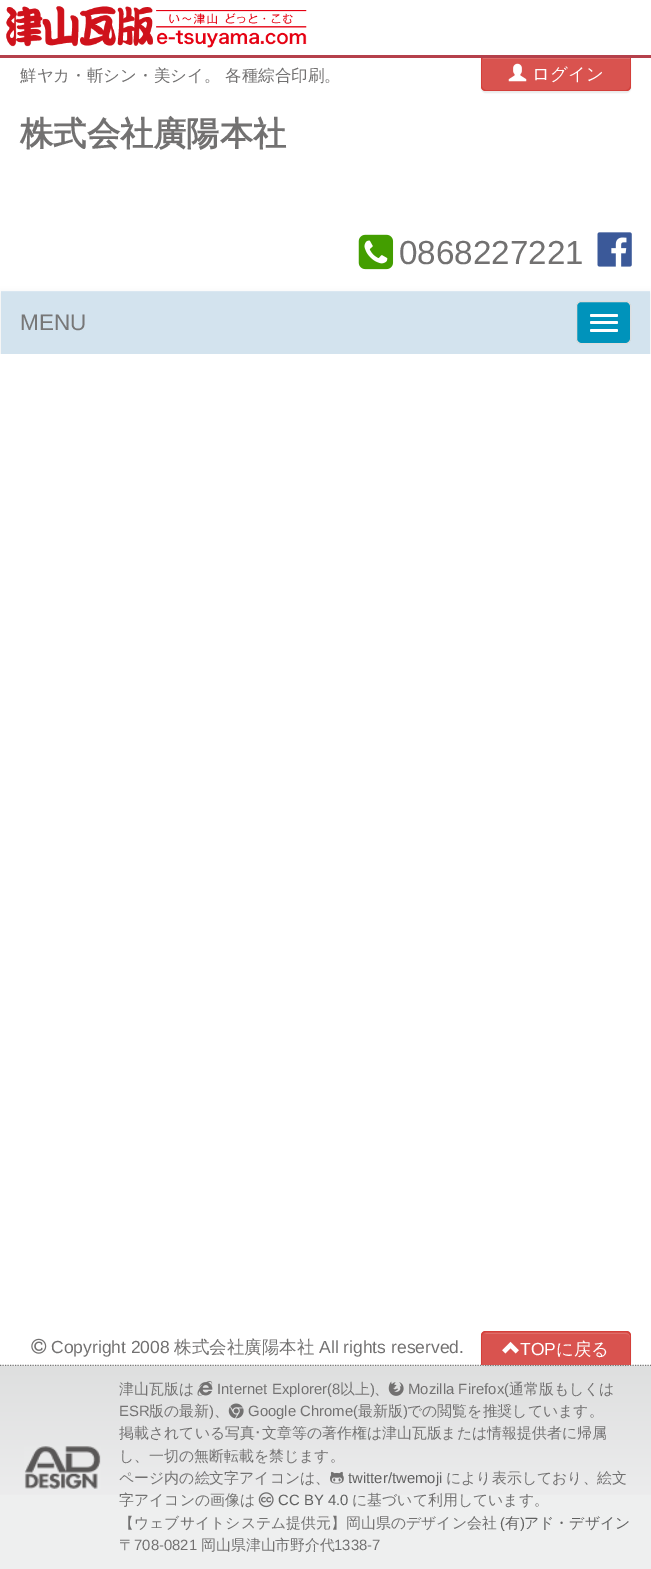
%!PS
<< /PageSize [651 1569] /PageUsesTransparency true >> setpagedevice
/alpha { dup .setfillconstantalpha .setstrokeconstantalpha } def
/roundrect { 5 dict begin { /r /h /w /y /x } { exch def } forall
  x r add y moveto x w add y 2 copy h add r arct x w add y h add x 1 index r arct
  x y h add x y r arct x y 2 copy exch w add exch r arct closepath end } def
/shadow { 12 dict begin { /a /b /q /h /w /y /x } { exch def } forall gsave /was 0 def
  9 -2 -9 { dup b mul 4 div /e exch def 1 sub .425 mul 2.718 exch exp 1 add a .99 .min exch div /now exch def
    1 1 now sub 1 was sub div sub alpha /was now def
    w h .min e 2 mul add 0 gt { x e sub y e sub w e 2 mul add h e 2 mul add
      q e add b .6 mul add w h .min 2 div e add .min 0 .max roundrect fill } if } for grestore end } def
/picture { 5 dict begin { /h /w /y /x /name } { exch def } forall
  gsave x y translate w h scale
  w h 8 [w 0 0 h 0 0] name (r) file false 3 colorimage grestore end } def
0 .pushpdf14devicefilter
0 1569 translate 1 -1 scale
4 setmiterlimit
0.933 0.937 0.937 setrgbcolor
0 0 651 1569 rectfill
1 setgray
0 0 651 55 rectfill
0.71 0.251 0.294 setrgbcolor
0 55 651 3 rectfill
(img1.rgb) 6 6 301 42 picture
1 setgray
0 58 651 233 rectfill
/WenQuanYiZenHei-Medium [16.5 0 0 -16.5 0 0] selectfont
0.447 0.443 0.443 setrgbcolor
20 81 moveto (鮮ヤカ・斬シン・美シイ。 各種綜合印刷。) show
0 setgray
481 59 150 34 5 0.5 0.07 shadow
0.851 0.325 0.31 setrgbcolor
newpath 481 58 moveto 631 58 lineto 631 86 lineto 631 89 629 91 626 91 curveto 486 91 lineto 483 91 481 89 481 86 curveto closepath fill
0.875 0.427 0.412 setrgbcolor
483 58 147 1 rectfill
0.831 0.247 0.227 setrgbcolor
newpath 481 58 moveto 631 58 lineto 631 86 lineto 631 89 629 91 626 91 curveto 486 91 lineto 483 91 481 89 481 86 curveto closepath 482 58 moveto 630 58 lineto 630 86 lineto 630 88 628 90 626 90 curveto 486 90 lineto 484 90 482 88 482 86 curveto closepath eofill
(img2.rgb) 508 63 19 19 picture
/WenQuanYiZenHei-Medium [17.5 0 0 -17.5 0 0] selectfont
1 setgray
532 80 moveto (ログイン) show
/WenQuanYiZenHei-Bold [33.25 0 0 -33.25 0 0] selectfont
0.447 0.443 0.443 setrgbcolor
20 145 moveto (株式会社廣陽本社) show
(img3.rgb) 358 234 36 36 picture
/LiberationSans-Regular [33.25 0 0 -33.25 0 0] selectfont
399 264 moveto (0868227221) show
(img4.rgb) 597 232 35 35 picture
1 setgray
650 291 1 63 rectfill
0 291 1 63 rectfill
0 setgray
1 293 649 62 0 3 0.07 shadow
0.827 0.89 0.933 setrgbcolor
1 292 649 62 rectfill
0.855 0.906 0.945 setrgbcolor
1 291 649 1 rectfill
/LiberationSans-Regular [22.5 0 0 -22.5 0 0] selectfont
0.467 setgray
20 330 moveto (MENU) show
0 0.576 0.733 setrgbcolor
576.5 301.5 54 42 4.5 roundrect gsave fill grestore
0.867 setgray
stroke
1 setgray
590 314 28 3 1.5 roundrect fill
590 321 28 3 1.5 roundrect fill
590 329 28 3 1.5 roundrect fill
0 354 651 977 rectfill
0 1331 651 34 rectfill
(img5.rgb) 31 1338 16 16 picture
/LiberationSans-Regular [17.5 0 0 -17.5 0 0] selectfont
0.447 0.443 0.443 setrgbcolor
51 1353 moveto (Copyright 2008) show
/WenQuanYiZenHei-Medium [17.5 0 0 -17.5 0 0] selectfont
174 1353 moveto (株式会社廣陽本社) show
/LiberationSans-Regular [17.5 0 0 -17.5 0 0] selectfont
319 1353 moveto (All rights reserved.) show
0.467 setgray
1.2 setlinewidth
[1.25 1.25] 0 setdash
newpath 0 1365.5 moveto 651 1365.5 lineto stroke
gsave newpath 0 1366 moveto 651 1366 lineto 651 1495 lineto 0 1495 lineto closepath clip newpath
<< /ShadingType 2 /ColorSpace /DeviceRGB /Coords [326 1366 326 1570] /Extend [true true] /Function << /FunctionType 3 /Domain [0 1] /Functions [<< /FunctionType 2 /Domain [0 1] /C0 [0.871 0.875 0.875] /C1 [0.933 0.933 0.937] /N 1 >> << /FunctionType 2 /Domain [0 1] /C0 [0.933 0.933 0.937] /C1 [0.933 0.933 0.937] /N 1 >>] /Bounds [0.7] /Encode [0 1 0 1] >> >> shfill grestore
0 setgray
481 1333 150 33 5 0.5 0.07 shadow
0.851 0.325 0.31 setrgbcolor
newpath 486 1331 moveto 626 1331 lineto 629 1331 631 1333 631 1336 curveto 631 1365 lineto 481 1365 lineto 481 1336 lineto 481 1333 483 1331 486 1331 curveto closepath fill
0.875 0.427 0.412 setrgbcolor
newpath 486 1334 moveto 626 1334 lineto 628 1334 630 1335 630 1338 curveto 630 1337 lineto 630 1335 628 1333 626 1333 curveto 487 1333 lineto 486 1333 485 1334 484 1334 curveto closepath fill
0.831 0.247 0.227 setrgbcolor
newpath 486 1331 moveto 626 1331 lineto 629 1331 631 1333 631 1336 curveto 631 1365 lineto 481 1365 lineto 481 1336 lineto 481 1333 483 1331 486 1331 curveto closepath 486 1332 moveto 626 1332 lineto 628 1332 630 1334 630 1336 curveto 630 1365 lineto 482 1365 lineto 482 1336 lineto 482 1334 484 1332 486 1332 curveto closepath eofill
(img6.rgb) 502 1341 17 13 picture
1 setgray
520 1355 moveto (TOP) show
/WenQuanYiZenHei-Medium [17.5 0 0 -17.5 0 0] selectfont
556 1355 moveto (に戻る) show
(img7.rgb) 24 1446 77 43 picture
/WenQuanYiZenHei-Medium [14.9 0 0 -14.9 0 0] selectfont
0.447 0.443 0.443 setrgbcolor
119 1394 moveto (津山瓦版は) show
(img8.rgb) 197 1381 16 15 picture
/LiberationSans-Regular [14.9 0 0 -14.9 0 0] selectfont
217 1394 moveto (Internet Explorer\(8) show
/WenQuanYiZenHei-Medium [14.9 0 0 -14.9 0 0] selectfont
340 1394 moveto (以上) show
/LiberationSans-Regular [14.9 0 0 -14.9 0 0] selectfont
370 1394 moveto (\)) show
/WenQuanYiZenHei-Medium [14.9 0 0 -14.9 0 0] selectfont
374 1394 moveto (、) show
(img9.rgb) 388 1381 16 15 picture
/LiberationSans-Regular [14.9 0 0 -14.9 0 0] selectfont
408 1394 moveto (Mozilla Firefox\() show
/WenQuanYiZenHei-Medium [14.9 0 0 -14.9 0 0] selectfont
509 1394 moveto (通常版もしくは) show
/LiberationSans-Regular [14.9 0 0 -14.9 0 0] selectfont
119 1416 moveto (ESR) show
/WenQuanYiZenHei-Medium [14.9 0 0 -14.9 0 0] selectfont
149 1416 moveto (版の最新) show
/LiberationSans-Regular [14.9 0 0 -14.9 0 0] selectfont
209 1416 moveto (\)) show
/WenQuanYiZenHei-Medium [14.9 0 0 -14.9 0 0] selectfont
214 1416 moveto (、) show
(img10.rgb) 228 1403 16 16 picture
/LiberationSans-Regular [14.9 0 0 -14.9 0 0] selectfont
248 1416 moveto (Google Chrome\() show
/WenQuanYiZenHei-Medium [14.9 0 0 -14.9 0 0] selectfont
358 1416 moveto (最新版) show
/LiberationSans-Regular [14.9 0 0 -14.9 0 0] selectfont
403 1416 moveto (\)) show
/WenQuanYiZenHei-Medium [14.9 0 0 -14.9 0 0] selectfont
407 1416 moveto (での閲覧を推奨しています。) show
119 1438 moveto (掲載されている写真) show
/IPAPGothic-Regular [14.9 0 0 -14.9 0 0] selectfont
254 1438 moveto (･) show
/WenQuanYiZenHei-Medium [14.9 0 0 -14.9 0 0] selectfont
262 1438 moveto (文章等の著作権は津山瓦版または情報提供者に帰属) show
119 1461 moveto (し、一切の無断転載を禁じます。) show
119 1483 moveto (ページ内の絵文字アイコンは、) show
(img11.rgb) 330 1471 14 13 picture
/LiberationSans-Regular [14.9 0 0 -14.9 0 0] selectfont
0.376 setgray
348 1483 moveto (twitter/twemoji) show
/WenQuanYiZenHei-Medium [14.9 0 0 -14.9 0 0] selectfont
0.447 0.443 0.443 setrgbcolor
446 1483 moveto (により表示しており、絵文) show
119 1505 moveto (字アイコンの画像は) show
(img12.rgb) 258 1492 16 16 picture
/LiberationSans-Regular [14.9 0 0 -14.9 0 0] selectfont
0.376 setgray
278 1505 moveto (CC BY 4.0) show
/WenQuanYiZenHei-Medium [14.9 0 0 -14.9 0 0] selectfont
0.447 0.443 0.443 setrgbcolor
352 1505 moveto (に基づいて利用しています。) show
119 1528 moveto (【ウェブサイトシステム提供元】岡山県のデザイン会社) show
/LiberationSans-Regular [14.9 0 0 -14.9 0 0] selectfont
0.376 setgray
500 1528 moveto (\() show
/WenQuanYiZenHei-Medium [14.9 0 0 -14.9 0 0] selectfont
505 1528 moveto (有) show
/LiberationSans-Regular [14.9 0 0 -14.9 0 0] selectfont
520 1528 moveto (\)) show
/WenQuanYiZenHei-Medium [14.9 0 0 -14.9 0 0] selectfont
524 1528 moveto (アド・デザイン) show
0.447 0.443 0.443 setrgbcolor
119 1550 moveto (〒) show
/LiberationSans-Regular [14.9 0 0 -14.9 0 0] selectfont
134 1550 moveto (708-0821) show
/WenQuanYiZenHei-Medium [14.9 0 0 -14.9 0 0] selectfont
201 1550 moveto (岡山県津山市野介代) show
/LiberationSans-Regular [14.9 0 0 -14.9 0 0] selectfont
334 1550 moveto (1338-7) show
.poppdf14devicefilter showpage
